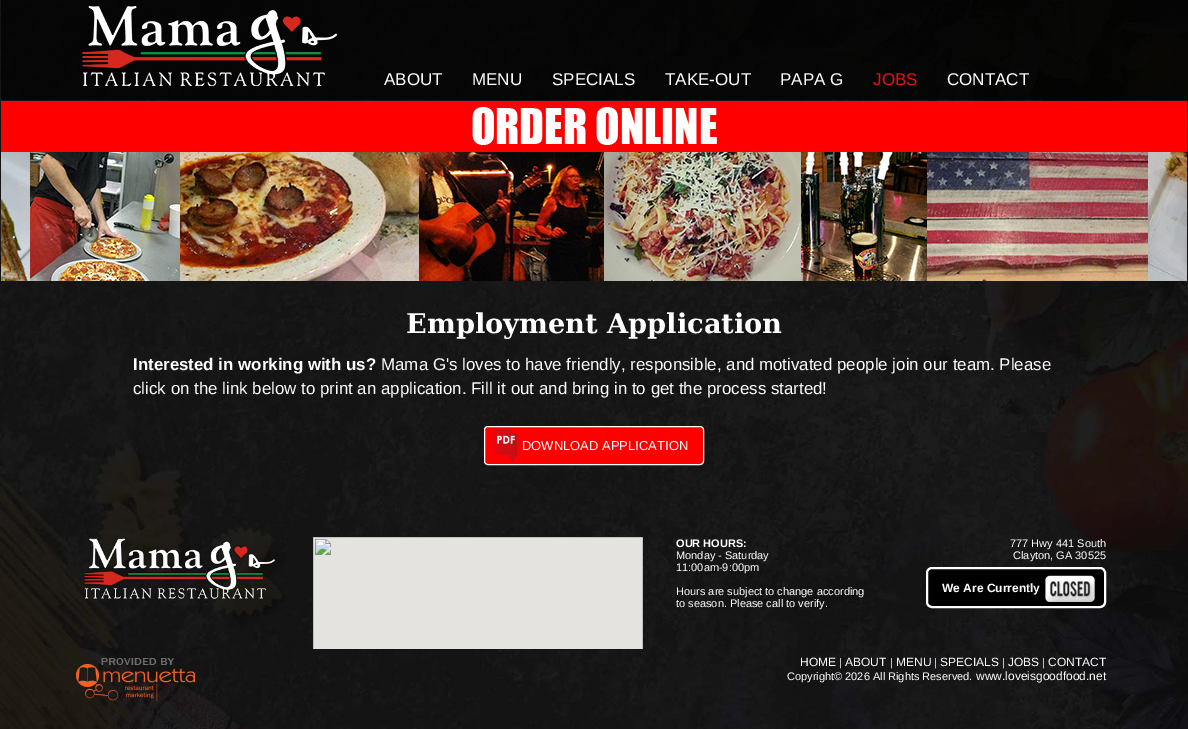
%!PS
<< /PageSize [1188 729] /PageUsesTransparency true >> setpagedevice
/alpha { dup .setfillconstantalpha .setstrokeconstantalpha } def
/roundrect { 5 dict begin { /r /h /w /y /x } { exch def } forall
  x r add y moveto x w add y 2 copy h add r arct x w add y h add x 1 index r arct
  x y h add x y r arct x y 2 copy exch w add exch r arct closepath end } def
/picture { 5 dict begin { /h /w /y /x /name } { exch def } forall
  gsave x y translate w h scale
  w h 8 [w 0 0 h 0 0] name (r) file false 3 colorimage grestore end } def
0 .pushpdf14devicefilter
0 729 translate 1 -1 scale
4 setmiterlimit
1 setgray
0 0 1188 729 rectfill
(img1.rgb) 0 0 1188 729 picture
(img2.rgb) 1 152 1186 129 picture
0.75 alpha
0 setgray
1 0 1187 100 rectfill
1 alpha
(img3.rgb) 82 6 255 80 picture
/LiberationSans-Regular [17 0 0 -17 0 0] selectfont
1 setgray
384 85 moveto (ABOUT) show
472 85 moveto (MENU) show
552 85 moveto (SPECIALS) show
665 85 moveto (TAKE-OUT) show
780 85 moveto (PAPA G) show
0.902 0.067 0.067 setrgbcolor
873 85 moveto (JOBS) show
1 setgray
947 85 moveto (CONTACT) show
1 0 0 setrgbcolor
1 101 1186 51 rectfill
(img4.rgb) 472 107 245 38 picture
/DejaVuSerif-Bold [27.25 0 0 -27.25 0 0] selectfont
1 setgray
406 333 moveto (Employment Application) show
/LiberationSans-Bold [16.9 0 0 -16.9 0 0] selectfont
133 370 moveto (Interested in working with us?) show
/LiberationSans-Regular [16.9 0 0 -16.9 0 0] selectfont
381 370 moveto (Mama G's loves to have friendly, responsible, and motivated people join our team. Please) show
133 394 moveto (click on the link below to print an application. Fill it out and bring in to get the process started!) show
1 0 0 setrgbcolor
484 426 220 39 4 roundrect fill
(img5.rgb) 492 430 25 32 picture
1 setgray
484.5 426.5 219 38 3.5 roundrect stroke
/LiberationSans-Regular [13 0 0 -13 0 0] selectfont
522 450 moveto (DOWNLOAD APPLICATION) show
(img6.rgb) 84 538 191 62 picture
(img7.rgb) 313 537 330 112 picture
/LiberationSans-Bold [11 0 0 -11 0 0] selectfont
676 547 moveto (OUR HOURS:) show
/LiberationSans-Regular [11 0 0 -11 0 0] selectfont
676 559 moveto (Monday - Saturday) show
676 571 moveto (11:00am-9:00pm) show
676 595 moveto (Hours are subject to change according) show
676 607 moveto (to season. Please call to verify.) show
1010 547 moveto (777 Hwy 441 South) show
1013 559 moveto (Clayton, GA 30525) show
0 setgray
927 568 178 39 5 roundrect gsave fill grestore
1 setgray
2 setlinewidth
stroke
/LiberationSans-Bold [12 0 0 -12 0 0] selectfont
942 592 moveto (We Are Currently) show
(img8.rgb) 1045 575 50 27 picture
(img9.rgb) 76 658 119 43 picture
/LiberationSans-Regular [12 0 0 -12 0 0] selectfont
800 666 moveto (HOME) show
/LiberationSans-Regular [11 0 0 -11 0 0] selectfont
839 666 moveto (|) show
/LiberationSans-Regular [12 0 0 -12 0 0] selectfont
845 666 moveto (ABOUT) show
/LiberationSans-Regular [11 0 0 -11 0 0] selectfont
890 666 moveto (|) show
/LiberationSans-Regular [12 0 0 -12 0 0] selectfont
896 666 moveto (MENU) show
/LiberationSans-Regular [11 0 0 -11 0 0] selectfont
934 666 moveto (|) show
/LiberationSans-Regular [12 0 0 -12 0 0] selectfont
940 666 moveto (SPECIALS) show
/LiberationSans-Regular [11 0 0 -11 0 0] selectfont
1002 666 moveto (|) show
/LiberationSans-Regular [12 0 0 -12 0 0] selectfont
1008 666 moveto (JOBS) show
/LiberationSans-Regular [11 0 0 -11 0 0] selectfont
1042 666 moveto (|) show
/LiberationSans-Regular [12 0 0 -12 0 0] selectfont
1048 666 moveto (CONTACT) show
/LiberationSans-Regular [11 0 0 -11 0 0] selectfont
787 680 moveto (Copyright© 2026 All Rights Reserved.) show
/LiberationSans-Regular [12 0 0 -12 0 0] selectfont
976 680 moveto (www.loveisgoodfood.net) show
.poppdf14devicefilter showpage
